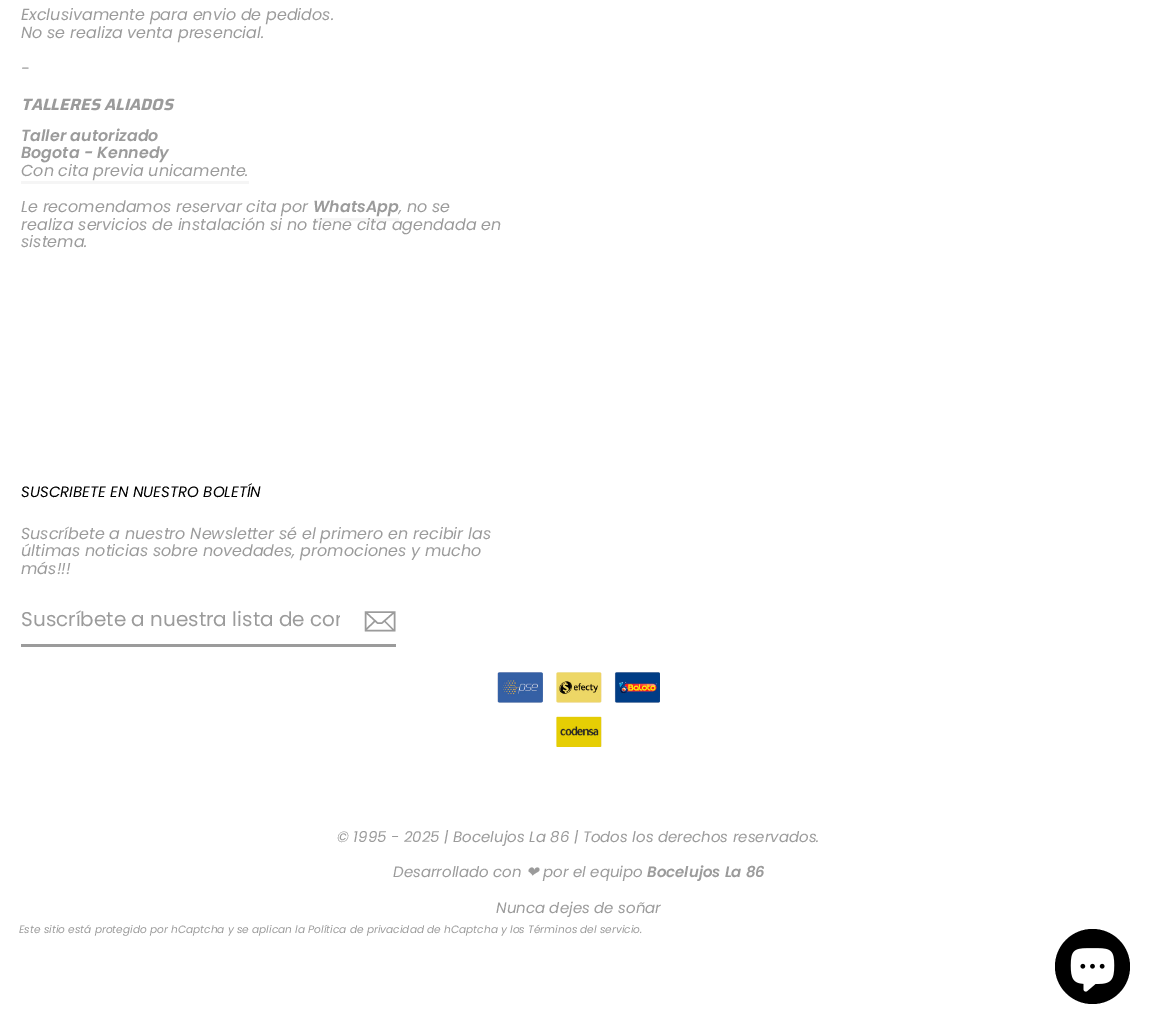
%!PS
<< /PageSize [1157 1029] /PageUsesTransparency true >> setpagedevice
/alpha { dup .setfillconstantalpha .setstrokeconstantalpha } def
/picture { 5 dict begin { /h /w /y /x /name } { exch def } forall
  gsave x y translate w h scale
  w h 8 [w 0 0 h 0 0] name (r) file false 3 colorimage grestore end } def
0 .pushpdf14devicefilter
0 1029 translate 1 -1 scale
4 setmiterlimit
1 setgray
0 0 1157 1029 rectfill
/Poppins-Italic [15.95 0 0 -15.95 0 0] selectfont
0.608 setgray
21 20 moveto (Exclusivamente para envio de pedidos.) show
21 38 moveto (No se realiza venta presencial.) show
21 74 moveto (-) show
/Saira-BoldItalic [16.25 0 0 -16.25 0 0] selectfont
21 110 moveto (TALLERES ALIADOS) show
/Poppins-SemiBoldItalic [15.95 0 0 -15.95 0 0] selectfont
21 141 moveto (Taller autorizado) show
21 158 moveto (Bogota - Kennedy) show
/Poppins-Italic [15.95 0 0 -15.95 0 0] selectfont
21 176 moveto (Con cita previa unicamente.) show
0.961 setgray
21 181 228 3 rectfill
0.608 setgray
21 212 moveto (Le recomendamos reservar cita por) show
399 212 moveto (, no se) show
/Poppins-SemiBoldItalic [15.95 0 0 -15.95 0 0] selectfont
313 212 moveto (WhatsApp) show
0.1 alpha
314 218 85 3 rectfill
/Poppins-Italic [15.95 0 0 -15.95 0 0] selectfont
1 alpha
21 230 moveto (realiza servicios de instalación si no tiene cita agendada en) show
21 247 moveto (sistema.) show
/Poppins-Italic [15 0 0 -15 0 0] selectfont
0 setgray
21 497 moveto (SUSCRIBETE EN NUESTRO BOLETÍN) show
/Poppins-Italic [15.95 0 0 -15.95 0 0] selectfont
0.608 setgray
21 539 moveto (Suscríbete a nuestro Newsletter sé el primero en recibir las) show
21 556 moveto (últimas noticias sobre novedades, promociones y mucho) show
21 574 moveto (más!!!) show
21 644 375 3 rectfill
gsave
21 604 319 31 rectclip
/Poppins-Regular [20 0 0 -20 0 0] selectfont
21 626 moveto (Suscríbete a nuestra lista de cor) show
grestore
1.4 setlinewidth
newpath 394.5 630.5 moveto 365.5 630.5 lineto 365.5 612 lineto 394.5 612 lineto closepath 365.5 612 moveto 377.5 623 lineto 382 623 lineto 394.5 612 lineto 375 621 moveto 365.5 630 lineto 394 630.5 moveto 384.5 621 lineto stroke
(img1.rgb) 497 672 163 75 picture
/Poppins-Italic [15 0 0 -15 0 0] selectfont
337 842 moveto (© 1995 - 2025 | Bocelujos La 86 | Todos los derechos reservados.) show
393 877 moveto (Desarrollado con) show
/DejaVuSans-Italic [15 0 0 -15 0 0] selectfont
526 877 moveto (❤) show
/Poppins-Italic [15 0 0 -15 0 0] selectfont
543 877 moveto (por el equipo) show
/Poppins-SemiBoldItalic [15 0 0 -15 0 0] selectfont
647 877 moveto (Bocelujos La 86) show
/Poppins-Italic [15 0 0 -15 0 0] selectfont
496 913 moveto (Nunca dejes de soñar) show
/Poppins-Italic [10.62 0 0 -10.62 0 0] selectfont
19 933 moveto (Este sitio está protegido por hCaptcha y se aplican la Política de privacidad de hCaptcha y los Términos del servicio.) show
0 setgray
newpath 1092.5 966.5 37.5 0 360 arc closepath fill
(img2.rgb) 1070 948 45 44 picture
.poppdf14devicefilter showpage
